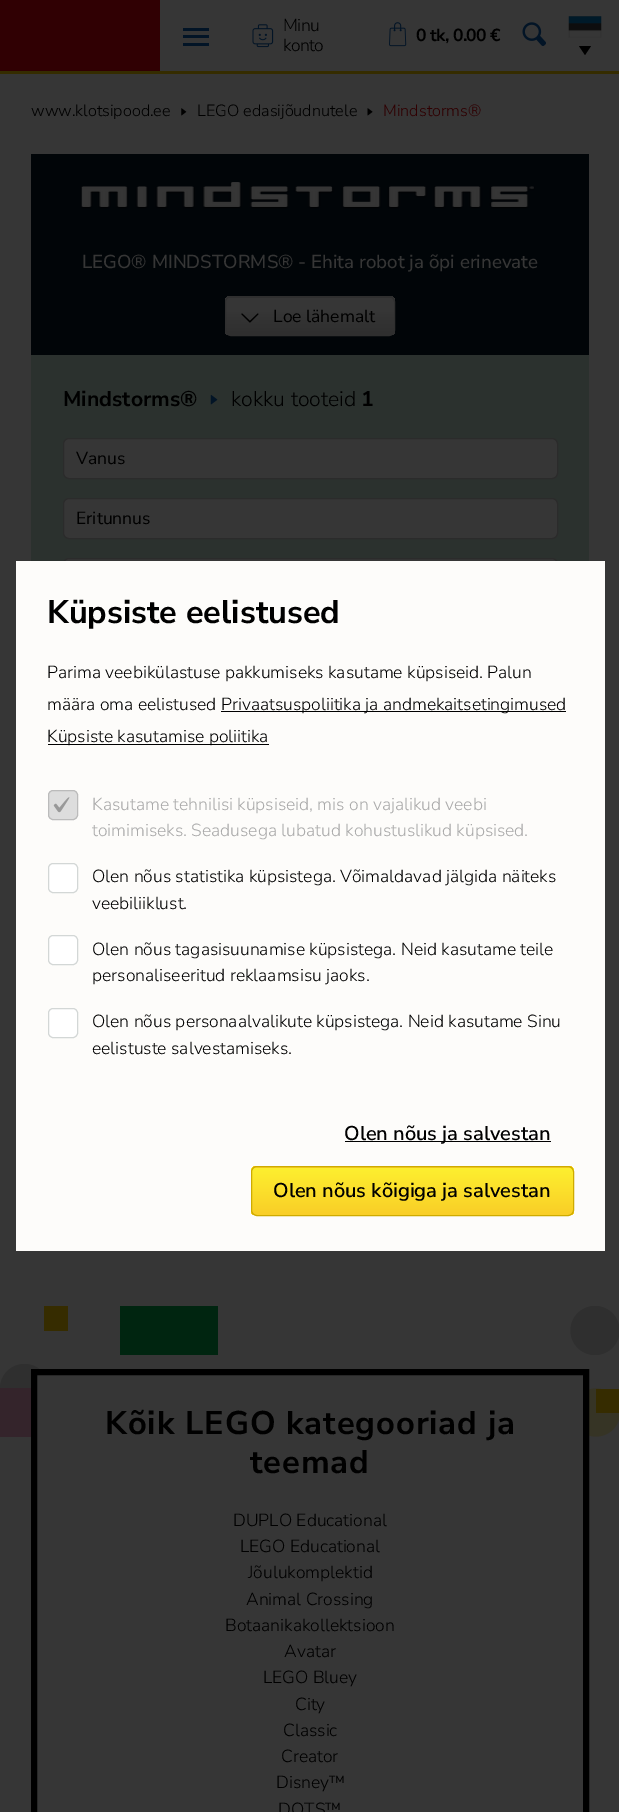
%!PS
<< /PageSize [619 1812] >> setpagedevice
/roundrect { 5 dict begin { /r /h /w /y /x } { exch def } forall
  x r add y moveto x w add y 2 copy h add r arct x w add y h add x 1 index r arct
  x y h add x y r arct x y 2 copy exch w add exch r arct closepath end } def
/picture { 5 dict begin { /h /w /y /x /name } { exch def } forall
  gsave x y translate w h scale
  w h 8 [w 0 0 h 0 0] name (r) file false 3 colorimage grestore end } def
0 1812 translate 1 -1 scale
4 setmiterlimit
0.212 setgray
0 0 619 1812 rectfill
0.208 0.173 0 setrgbcolor
0 71 619 3 rectfill
0.188 0 0.012 setrgbcolor
0 0 160 71 rectfill
0.008 0.078 0.149 setrgbcolor
183 28 26 3 rectfill
183 35 26 3 rectfill
183 43 26 3 rectfill
(img1.rgb) 252 24 22 24 picture
/NunitoSans-Light [17.5 0 0 -17.5 0 0] selectfont
0 setgray
283 31 moveto -0.6 0 (Minu) ashow
283 51 moveto -0.6 0 (konto) ashow
(img2.rgb) 389 22 18 25 picture
/NunitoSans-Bold [17.5 0 0 -17.5 0 0] selectfont
416 41 moveto -0.6 0 (0 tk, 0.00 €) ashow
(img3.rgb) 522 22 24 24 picture
(img4.rgb) 568 16 34 22 picture
newpath 579 46 moveto 591 46 lineto 585 55 lineto closepath fill
/NunitoSans-Light [16.25 0 0 -16.25 0 0] selectfont
31 116 moveto (www.klotsipood.ee) show
(img5.rgb) 181 108 6 8 picture
197 116 moveto (LEGO edasijõudnutele) show
(img6.rgb) 367 108 6 8 picture
0.188 0 0.008 setrgbcolor
383 116 moveto (Mindstorms®) show
0.004 0.02 0.031 setrgbcolor
31 154 558 201 rectfill
(img7.rgb) 80 182 455 27 picture
/NunitoSans-Medium [18.75 0 0 -18.75 0 0] selectfont
0.212 setgray
82 268 moveto (LEGO® MINDSTORMS® - Ehita robot ja õpi erinevate) show
gsave
225 296 170 40 6 roundrect clip newpath
gsave newpath 225 296 moveto 395 296 lineto 395 298 lineto 225 298 lineto closepath clip newpath
<< /ShadingType 2 /ColorSpace /DeviceRGB /Coords [310 260 310 298] /Extend [true true] /Function << /FunctionType 3 /Domain [0 1] /Functions [<< /FunctionType 2 /Domain [0 1] /C0 [0.212 0.212 0.212] /C1 [0.212 0.212 0.212] /N 1 >> << /FunctionType 2 /Domain [0 1] /C0 [0.212 0.212 0.212] /C1 [0.184 0.184 0.184] /N 1 >>] /Bounds [0.35] /Encode [0 1 0 1] >> >> shfill grestore
gsave newpath 225 298 moveto 395 298 lineto 395 335 lineto 225 335 lineto closepath clip newpath
<< /ShadingType 2 /ColorSpace /DeviceRGB /Coords [310 298 310 335] /Extend [true true] /Function << /FunctionType 3 /Domain [0 1] /Functions [<< /FunctionType 2 /Domain [0 1] /C0 [0.212 0.212 0.212] /C1 [0.212 0.212 0.212] /N 1 >> << /FunctionType 2 /Domain [0 1] /C0 [0.212 0.212 0.212] /C1 [0.184 0.184 0.184] /N 1 >>] /Bounds [0.35] /Encode [0 1 0 1] >> >> shfill grestore
grestore
0.184 setgray
225.5 296.5 169 39 5.5 roundrect stroke
(img8.rgb) 241 313 18 10 picture
/NunitoSans-Regular [17.5 0 0 -17.5 0 0] selectfont
0 setgray
273 322 moveto (Loe lähemalt) show
0.169 0.192 0.18 setrgbcolor
31 355 558 206 rectfill
/NunitoSans-Bold [21.25 0 0 -21.25 0 0] selectfont
0 setgray
63 406 moveto (Mindstorms®) show
(img9.rgb) 210 394 8 11 picture
/NunitoSans-Light [21.25 0 0 -21.25 0 0] selectfont
231 406 moveto (kokku tooteid) show
/NunitoSans-Bold [21.25 0 0 -21.25 0 0] selectfont
361 406 moveto (1) show
0.212 setgray
63.5 438.5 494 40 5.5 roundrect gsave fill grestore
0.169 setgray
stroke
/NunitoSans-Regular [17.5 0 0 -17.5 0 0] selectfont
0 setgray
76 464 moveto (Vanus) show
0.212 setgray
63.5 498.5 494 40 5.5 roundrect gsave fill grestore
0.169 setgray
stroke
0 setgray
76 524 moveto (Eritunnus) show
0.212 setgray
63.5 558.5 494 40 5.5 roundrect gsave fill grestore
0.169 setgray
stroke
0.212 0.173 0 setrgbcolor
44 1306 24 25 rectfill
0 0.145 0.063 setrgbcolor
120 1306 98 49 rectfill
0.184 setgray
newpath 595 1330.5 24.5 0 360 arc closepath fill
0.212 0.204 0.145 setrgbcolor
newpath 596 1412.5 24 0 360 arc closepath fill
0.212 0.173 0 setrgbcolor
596 1389 23 24 rectfill
0.184 setgray
newpath 24.5 1388.5 24.5 0 360 arc closepath fill
0.204 0.141 0.169 setrgbcolor
0 1388 31 49 rectfill
0.212 setgray
37 1375 546 58 rectfill
0 setgray
6 setlinewidth
34 1372 552 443 rectstroke
/NunitoSans-Bold [32.75 0 0 -32.75 0 0] selectfont
105 1434 moveto 0.9 0 (Kõik LEGO kategooriad ja) ashow
250 1473 moveto 0.9 0 (teemad) ashow
/NunitoSans-Light [17.5 0 0 -17.5 0 0] selectfont
233 1526 moveto (DUPLO Educational) show
240 1552 moveto (LEGO Educational) show
248 1578 moveto (Jõulukomplektid) show
246 1605 moveto (Animal Crossing) show
225 1631 moveto (Botaanikakollektsioon) show
284 1657 moveto (Avatar) show
263 1683 moveto (LEGO Bluey) show
295 1710 moveto (City) show
283 1736 moveto (Classic) show
281 1762 moveto (Creator) show
276 1788 moveto (Disney™) show
278 1815 moveto (DOTS™) show
0.992 0.988 0.98 setrgbcolor
16 561 589 690 rectfill
/NunitoSans-Bold [32.5 0 0 -32.5 0 0] selectfont
0 setgray
47 623 moveto (Küpsiste eelistused) show
/NunitoSans-Light [17.5 0 0 -17.5 0 0] selectfont
47 678 moveto (Parima veebikülastuse pakkumiseks kasutame küpsiseid. Palun) show
47 710 moveto (määra oma eelistused) show
221 711 345 1 rectfill
221 710 moveto (Privaatsuspoliitika ja andmekaitsetingimused) show
48 744 221 1 rectfill
47 742 moveto (Küpsiste kasutamise poliitika) show
0.867 setgray
48.5 790.5 29 29 4.5 roundrect gsave fill grestore
0.733 setgray
1 setlinewidth
stroke
(img10.rgb) 53 797 17 16 picture
0.667 setgray
92 810 moveto (Kasutame tehnilisi küpsiseid, mis on vajalikud veebi) show
92 836 moveto (toimimiseks. Seadusega lubatud kohustuslikud küpsised.) show
1 setgray
48.5 863.5 29 29 4.5 roundrect gsave fill grestore
0.827 0.843 0.839 setrgbcolor
stroke
0 setgray
92 882 moveto (Olen nõus statistika küpsistega. Võimaldavad jälgida näiteks) show
92 909 moveto (veebiliiklust.) show
1 setgray
48.5 935.5 29 29 4.5 roundrect gsave fill grestore
0.827 0.843 0.839 setrgbcolor
stroke
0 setgray
92 955 moveto (Olen nõus tagasisuunamise küpsistega. Neid kasutame teile) show
92 981 moveto (personaliseeritud reklaamsisu jaoks.) show
1 setgray
48.5 1008.5 29 29 4.5 roundrect gsave fill grestore
0.827 0.843 0.839 setrgbcolor
stroke
0 setgray
92 1027 moveto (Olen nõus personaalvalikute küpsistega. Neid kasutame Sinu) show
92 1054 moveto (eelistuste salvestamiseks.) show
345 1141 206 1 rectfill
/NunitoSans-SemiBold [20 0 0 -20 0 0] selectfont
344 1140 moveto (Olen nõus ja salvestan) show
gsave
251 1166 323 50 6 roundrect clip newpath
gsave newpath 251 1166 moveto 574 1166 lineto 574 1168 lineto 251 1168 lineto closepath clip newpath
<< /ShadingType 2 /ColorSpace /DeviceRGB /Coords [413 1120 413 1168] /Extend [true true] /Function << /FunctionType 2 /Domain [0 1] /C0 [0.992 0.937 0.184] /C1 [0.976 0.808 0.153] /N 1 >> >> shfill grestore
gsave newpath 251 1168 moveto 574 1168 lineto 574 1215 lineto 251 1215 lineto closepath clip newpath
<< /ShadingType 2 /ColorSpace /DeviceRGB /Coords [413 1168 413 1215] /Extend [true true] /Function << /FunctionType 2 /Domain [0 1] /C0 [0.992 0.937 0.184] /C1 [0.976 0.808 0.153] /N 1 >> >> shfill grestore
grestore
0.808 0.671 0 setrgbcolor
251.5 1166.5 322 49 5.5 roundrect stroke
0 setgray
273 1197 moveto (Olen nõus kõigiga ja salvestan) show
showpage
